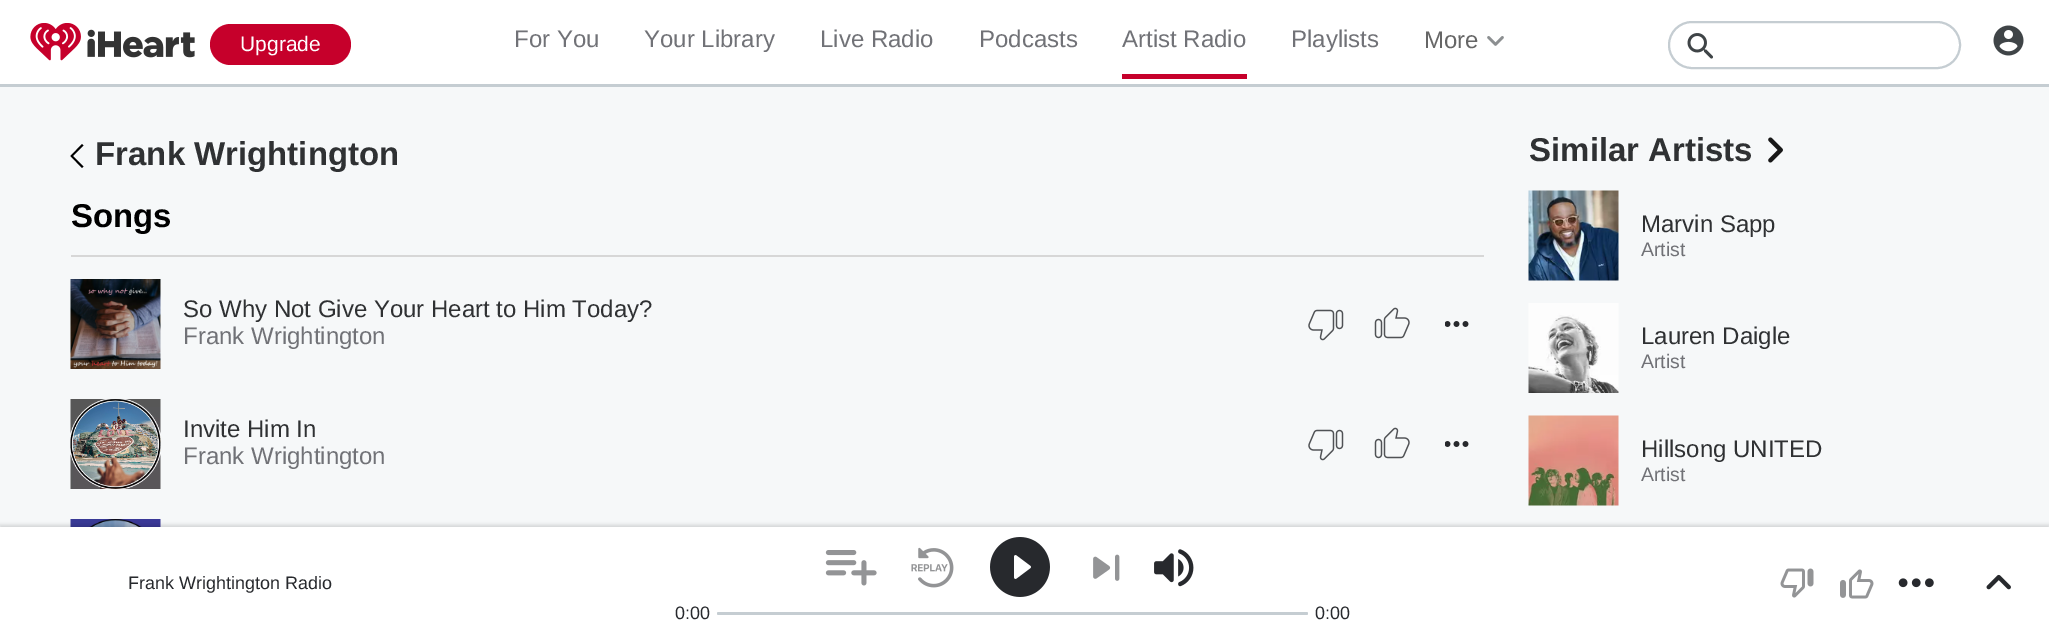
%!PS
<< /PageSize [2049 639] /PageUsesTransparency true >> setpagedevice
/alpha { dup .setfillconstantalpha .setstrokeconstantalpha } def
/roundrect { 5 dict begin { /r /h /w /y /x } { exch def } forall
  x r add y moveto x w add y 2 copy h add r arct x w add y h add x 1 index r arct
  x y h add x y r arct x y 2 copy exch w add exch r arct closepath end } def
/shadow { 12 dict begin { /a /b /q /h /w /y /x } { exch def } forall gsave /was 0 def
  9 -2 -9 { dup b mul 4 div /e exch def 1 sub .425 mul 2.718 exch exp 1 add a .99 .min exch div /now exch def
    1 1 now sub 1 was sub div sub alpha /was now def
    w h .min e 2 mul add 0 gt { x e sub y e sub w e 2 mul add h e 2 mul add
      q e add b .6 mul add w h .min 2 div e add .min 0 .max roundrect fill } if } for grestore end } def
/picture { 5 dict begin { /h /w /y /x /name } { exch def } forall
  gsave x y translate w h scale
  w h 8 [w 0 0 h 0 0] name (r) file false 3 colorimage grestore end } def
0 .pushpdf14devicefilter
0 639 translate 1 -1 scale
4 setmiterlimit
0.965 0.973 0.976 setrgbcolor
0 0 2049 639 rectfill
1 setgray
0 0 2049 84 rectfill
0.773 0.804 0.824 setrgbcolor
0 84 2049 3 rectfill
(img1.rgb) 30 23 165 38 picture
0.776 0 0.169 setrgbcolor
210 24 141 41 20.5 roundrect fill
/LiberationSans-Regular [21 0 0 -21 0 0] selectfont
1 setgray
240 51 moveto (Upgrade) show
/LiberationSans-Regular [24 0 0 -24 0 0] selectfont
0.443 0.447 0.467 setrgbcolor
514 47 moveto (For You) show
644 47 moveto (Your Library) show
820 47 moveto (Live Radio) show
979 47 moveto (Podcasts) show
1122 47 moveto (Artist Radio) show
0.776 0 0.169 setrgbcolor
1122 74 125 5 rectfill
0.443 0.447 0.467 setrgbcolor
1291 47 moveto (Playlists) show
0.4 setgray
1424 48 moveto (More) show
(img2.rgb) 1487 36 17 10 picture
0.773 0.804 0.824 setrgbcolor
2 setlinewidth
1669 22 291 46 23 roundrect stroke
(img3.rgb) 1687 33 26 26 picture
(img4.rgb) 1993 25 31 31 picture
0 setgray
newpath 82 144 moveto 70.5 156 lineto 82 168 lineto 83.5 166.5 lineto 73 156 lineto 83.5 145.5 lineto closepath fill
/LiberationSans-Bold [33 0 0 -33 0 0] selectfont
0.184 0.192 0.2 setrgbcolor
95 165 moveto (Frank Wrightington) show
0.843 setgray
71 255 1413 2 rectfill
0 setgray
71 227 moveto (Songs) show
(img5.rgb) 70 279 91 90 picture
/LiberationSans-Regular [24 0 0 -24 0 0] selectfont
0.184 0.192 0.2 setrgbcolor
183 317 moveto (So Why Not Give Your Heart to Him Today?) show
0.443 0.447 0.467 setrgbcolor
183 344 moveto (Frank Wrightington) show
(img6.rgb) 1308 309 36 32 picture
(img7.rgb) 1374 307 36 32 picture
(img8.rgb) 1445 321 24 6 picture
(img9.rgb) 70 399 91 90 picture
0.184 0.192 0.2 setrgbcolor
183 437 moveto (Invite Him In) show
0.443 0.447 0.467 setrgbcolor
183 464 moveto (Frank Wrightington) show
(img6.rgb) 1308 429 36 32 picture
(img7.rgb) 1374 427 36 32 picture
(img8.rgb) 1445 441 24 6 picture
(img10.rgb) 70 519 91 8 picture
/LiberationSans-Bold [33 0 0 -33 0 0] selectfont
0.184 0.192 0.2 setrgbcolor
1529 161 moveto (Similar Artists) show
(img11.rgb) 1768 137 15 26 picture
(img12.rgb) 1528 190 91 91 picture
/LiberationSans-Regular [24 0 0 -24 0 0] selectfont
1641 232 moveto (Marvin Sapp) show
/LiberationSans-Regular [19.5 0 0 -19.5 0 0] selectfont
0.443 0.447 0.467 setrgbcolor
1641 256 moveto (Artist) show
(img13.rgb) 1528 303 91 90 picture
/LiberationSans-Regular [24 0 0 -24 0 0] selectfont
0.184 0.192 0.2 setrgbcolor
1641 344 moveto (Lauren Daigle) show
/LiberationSans-Regular [19.5 0 0 -19.5 0 0] selectfont
0.443 0.447 0.467 setrgbcolor
1641 368 moveto (Artist) show
(img14.rgb) 1528 415 91 91 picture
/LiberationSans-Regular [24 0 0 -24 0 0] selectfont
0.184 0.192 0.2 setrgbcolor
1641 457 moveto (Hillsong UNITED) show
/LiberationSans-Regular [19.5 0 0 -19.5 0 0] selectfont
0.443 0.447 0.467 setrgbcolor
1641 481 moveto (Artist) show
0 setgray
0 525 2049 113 0 2 0.15 shadow
1 setgray
0 527 2049 112 rectfill
/LiberationSans-Regular [18 0 0 -18 0 0] selectfont
0.153 0.161 0.176 setrgbcolor
128 589 moveto (Frank Wrightington Radio) show
(img15.rgb) 1780 568 34 30 picture
(img16.rgb) 1840 569 34 30 picture
(img17.rgb) 1898 578 36 10 picture
(img18.rgb) 1986 574 25 16 picture
(img19.rgb) 825 550 52 36 picture
(img20.rgb) 911 547 43 41 picture
(img21.rgb) 990 537 60 60 picture
(img22.rgb) 1093 554 27 27 picture
(img23.rgb) 1154 549 40 38 picture
675 619 moveto (0:00) show
0.773 0.804 0.824 setrgbcolor
717 612 591 3 1.5 roundrect fill
0.153 0.161 0.176 setrgbcolor
1315 619 moveto (0:00) show
.poppdf14devicefilter showpage
